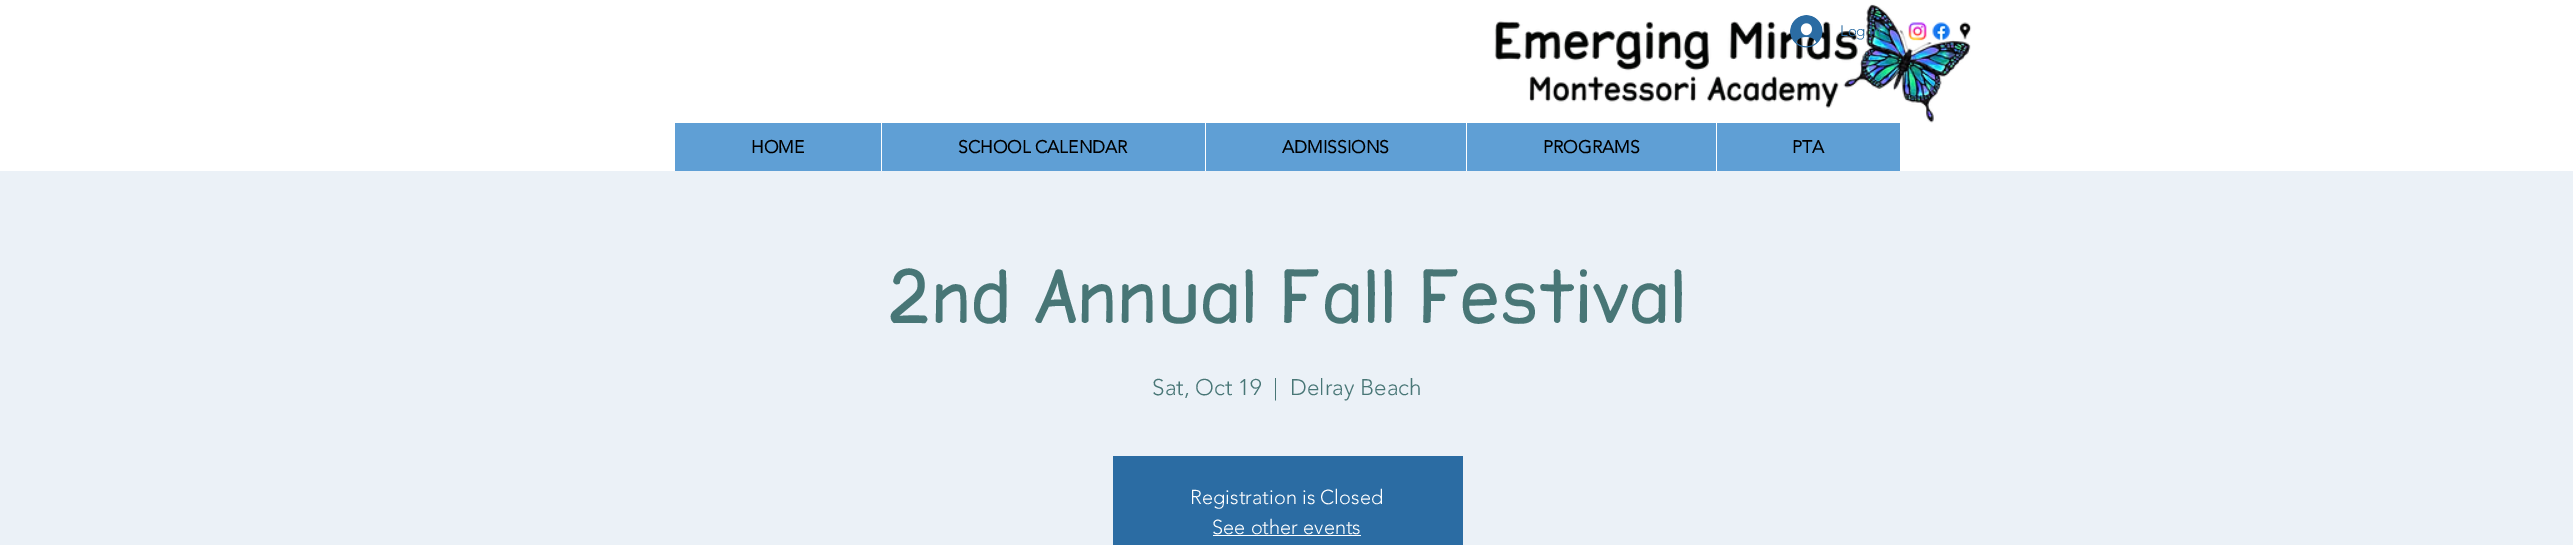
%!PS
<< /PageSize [2573 545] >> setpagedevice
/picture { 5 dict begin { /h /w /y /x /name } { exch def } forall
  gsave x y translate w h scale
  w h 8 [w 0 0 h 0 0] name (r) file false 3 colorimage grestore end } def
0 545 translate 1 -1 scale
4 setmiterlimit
1 setgray
0 0 2573 545 rectfill
(img1.rgb) 1494 4 477 119 picture
(img2.rgb) 1790 15 33 33 picture
/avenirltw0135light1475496-Light [15 0 0 -15 0 0] selectfont
0.169 0.424 0.639 setrgbcolor
1840 36 moveto (Log In) show
(img3.rgb) 1908 22 19 19 picture
(img4.rgb) 1932 22 19 19 picture
(img5.rgb) 1959 22 13 18 picture
0.373 0.624 0.835 setrgbcolor
675 123 1225 48 rectfill
/avenirltw0135light1475496-Bold [17.5 0 0 -17.5 0 0] selectfont
0 setgray
751 153 moveto (HOME) show
1 setgray
881 123 1 48 rectfill
0 setgray
958 153 moveto (SCHOOL CALENDAR) show
1 setgray
1205 123 1 48 rectfill
0 setgray
1282 153 moveto (ADMISSIONS) show
1 setgray
1466 123 1 48 rectfill
0 setgray
1543 153 moveto (PROGRAMS) show
1 setgray
1716 123 1 48 rectfill
0 setgray
1792 153 moveto (PTA) show
0.922 0.945 0.969 setrgbcolor
0 171 2573 374 rectfill
/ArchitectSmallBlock-Regular [75 0 0 -75 0 0] selectfont
0.282 0.463 0.463 setrgbcolor
887 323 moveto (2nd Annual Fall Festival) show
/avenirltw0135light1475496-Light [22.5 0 0 -22.5 0 0] selectfont
1152 395 moveto (Sat, Oct 19) show
1273 395 moveto (|) show
1290 395 moveto (Delray Beach) show
0.169 0.424 0.639 setrgbcolor
1113 456 350 89 rectfill
/avenirltw0135light1475496-Light [20 0 0 -20 0 0] selectfont
1 setgray
1190 504 moveto (Registration is Closed) show
1212 534 moveto (See other events) show
1213 535 148 1 rectfill
showpage
